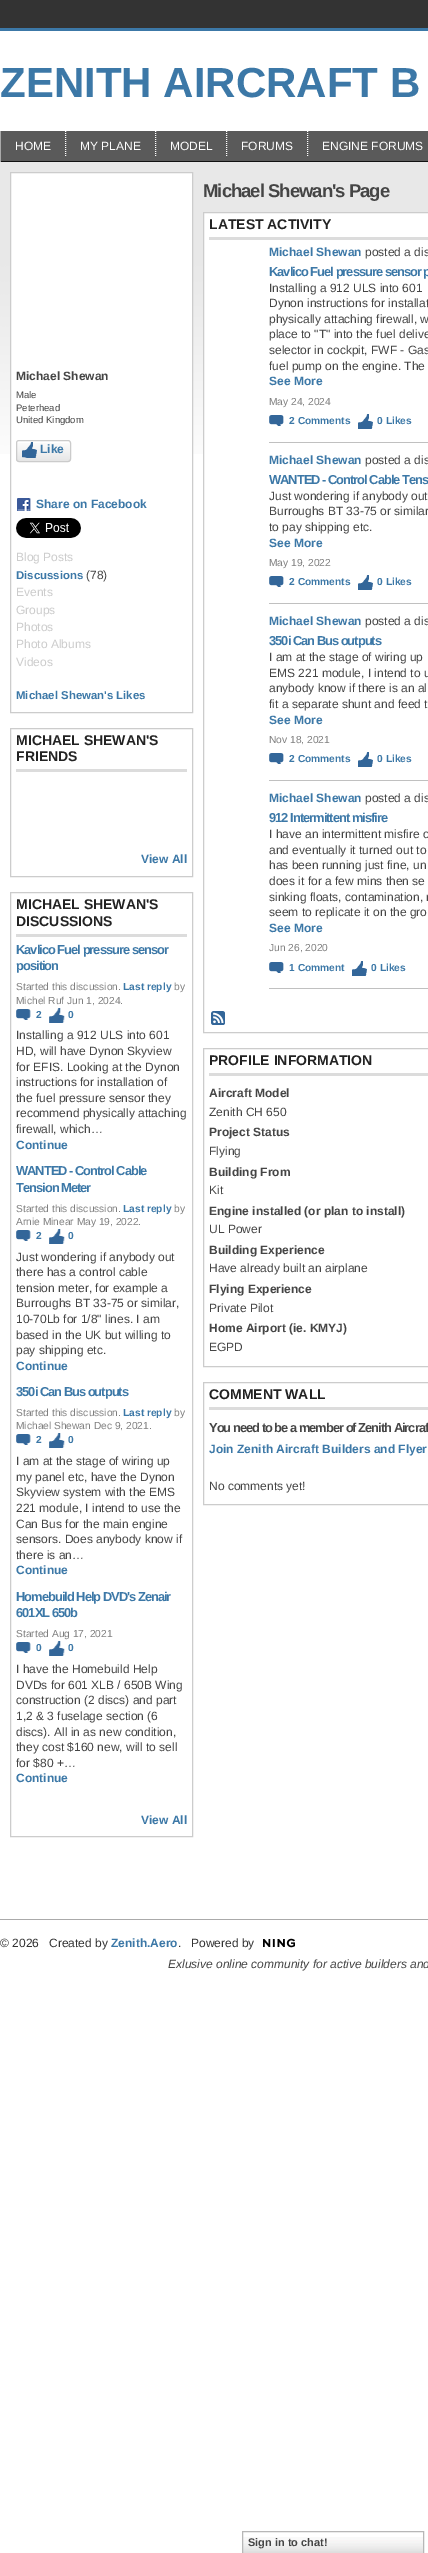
%!PS
<< /PageSize [428 2553] >> setpagedevice
/roundrect { 5 dict begin { /r /h /w /y /x } { exch def } forall
  x r add y moveto x w add y 2 copy h add r arct x w add y h add x 1 index r arct
  x y h add x y r arct x y 2 copy exch w add exch r arct closepath end } def
/picture { 5 dict begin { /h /w /y /x /name } { exch def } forall
  gsave x y translate w h scale
  w h 8 [w 0 0 h 0 0] name (r) file false 3 colorimage grestore end } def
0 2553 translate 1 -1 scale
4 setmiterlimit
1 setgray
0 0 428 2553 rectfill
0.2 setgray
0 0 428 28 rectfill
0.235 0.471 0.655 setrgbcolor
0 28 428 3 rectfill
/LiberationSans-Bold [42 0 0 -42 0 0] selectfont
0 97 moveto (ZENITH AIRCRAFT B) show
0.353 setgray
1 131 427 30 rectfill
0.067 setgray
0 161 428 1 rectfill
0.667 setgray
0 131 1 31 rectfill
1 setgray
[1 1] 0 setdash
newpath 65.5 127 moveto 65.5 157 lineto stroke
/LiberationSans-Regular [12 0 0 -12 0 0] selectfont
15 150 moveto (HOME) show
newpath 155.5 127 moveto 155.5 157 lineto stroke
80 150 moveto (MY PLANE) show
newpath 226.5 127 moveto 226.5 157 lineto stroke
170 150 moveto (MODEL) show
newpath 307.5 127 moveto 307.5 157 lineto stroke
241 150 moveto (FORUMS) show
322 150 moveto (ENGINE FORUMS) show
(img1.rgb) 0 162 428 292 picture
11 173 181 281 rectfill
0.8 setgray
[] 0 setdash
10.5 172.5 182 540 rectstroke
/LiberationSans-Bold [12 0 0 -12 0 0] selectfont
0.271 setgray
16 380 moveto (Michael Shewan) show
/LiberationSans-Regular [9.5 0 0 -9.5 0 0] selectfont
16 398 moveto (Male) show
16 411 moveto (Peterhead) show
16 423 moveto (United Kingdom) show
(img2.rgb) 16 443 55 19 picture
0.796 setgray
16.5 440.5 54 21 2.5 roundrect stroke
(img3.rgb) 22 442 15 16 picture
/LiberationSans-Bold [12 0 0 -12 0 0] selectfont
0.235 0.471 0.655 setrgbcolor
40 453 moveto (Like) show
(img4.rgb) 17 498 14 13 picture
36 508 moveto (Share on Facebook) show
(img5.rgb) 16 518 65 20 picture
/LiberationSans-Regular [12 0 0 -12 0 0] selectfont
0.8 setgray
16 561 moveto (Blog Posts) show
/LiberationSans-Bold [11.4 0 0 -11.4 0 0] selectfont
0.235 0.471 0.655 setrgbcolor
16 579 moveto (Discussions) show
/LiberationSans-Regular [12 0 0 -12 0 0] selectfont
0.271 setgray
86 579 moveto (\(78\)) show
0.8 setgray
16 596 moveto (Events) show
16 614 moveto (Groups) show
16 631 moveto (Photos) show
16 648 moveto (Photo Albums) show
16 666 moveto (Videos) show
/LiberationSans-Bold [11.4 0 0 -11.4 0 0] selectfont
0.235 0.471 0.655 setrgbcolor
16 699 moveto (Michael Shewan's Likes) show
0.8 setgray
10.5 728.5 182 148 rectstroke
0.863 setgray
16 769 171 3 rectfill
/LiberationSans-Bold [14 0 0 -14 0 0] selectfont
0.133 setgray
16 745 moveto (MICHAEL SHEWAN'S) show
16 761 moveto (FRIENDS) show
/LiberationSans-Bold [12 0 0 -12 0 0] selectfont
0.235 0.471 0.655 setrgbcolor
141 863 moveto (View All) show
0.8 setgray
10.5 892.5 182 944 rectstroke
0.863 setgray
16 934 171 3 rectfill
/LiberationSans-Bold [14 0 0 -14 0 0] selectfont
0.133 setgray
16 909 moveto (MICHAEL SHEWAN'S) show
16 926 moveto (DISCUSSIONS) show
/LiberationSans-Bold [12.9 0 0 -12.9 0 0] selectfont
0.235 0.471 0.655 setrgbcolor
16 954 moveto -1 0 (Kavlico Fuel pressure sensor) ashow
16 970 moveto -1 0 (position) ashow
/LiberationSans-Regular [10.2 0 0 -10.2 0 0] selectfont
0.498 setgray
16 990 moveto (Started this discussion.) show
/LiberationSans-Bold [10.2 0 0 -10.2 0 0] selectfont
0.235 0.471 0.655 setrgbcolor
123 990 moveto (Last reply) show
/LiberationSans-Regular [10.2 0 0 -10.2 0 0] selectfont
0.498 setgray
174 990 moveto (by) show
16 1004 moveto (Michel Ruf Jun 1, 2024.) show
(img6.rgb) 16 1009 15 11 picture
/LiberationSans-Bold [10.2 0 0 -10.2 0 0] selectfont
0.235 0.471 0.655 setrgbcolor
36 1018 moveto (2) show
(img7.rgb) 49 1008 16 15 picture
68 1018 moveto (0) show
/LiberationSans-Regular [12 0 0 -12 0 0] selectfont
0.271 setgray
16 1039 moveto (Installing a 912 ULS into 601) show
16 1055 moveto (HD, will have Dynon Skyview) show
16 1071 moveto (for EFIS. Looking at the Dynon) show
16 1086 moveto (instructions for installation of) show
16 1102 moveto (the fuel pressure sensor they) show
16 1117 moveto (recommend physically attaching) show
16 1133 moveto (firewall, which…) show
/LiberationSans-Bold [12 0 0 -12 0 0] selectfont
0.235 0.471 0.655 setrgbcolor
16 1149 moveto (Continue) show
/LiberationSans-Bold [12.9 0 0 -12.9 0 0] selectfont
16 1175 moveto -1 0 (WANTED - Control Cable) ashow
16 1192 moveto -1 0 (Tension Meter) ashow
/LiberationSans-Regular [10.2 0 0 -10.2 0 0] selectfont
0.498 setgray
16 1212 moveto (Started this discussion.) show
/LiberationSans-Bold [10.2 0 0 -10.2 0 0] selectfont
0.235 0.471 0.655 setrgbcolor
123 1212 moveto (Last reply) show
/LiberationSans-Regular [10.2 0 0 -10.2 0 0] selectfont
0.498 setgray
174 1212 moveto (by) show
16 1225 moveto (Arnie Minear May 19, 2022.) show
(img6.rgb) 16 1230 15 11 picture
/LiberationSans-Bold [10.2 0 0 -10.2 0 0] selectfont
0.235 0.471 0.655 setrgbcolor
36 1239 moveto (2) show
(img7.rgb) 49 1229 16 15 picture
68 1239 moveto (0) show
/LiberationSans-Regular [12 0 0 -12 0 0] selectfont
0.271 setgray
16 1261 moveto (Just wondering if anybody out) show
16 1276 moveto (there has a control cable) show
16 1292 moveto (tension meter, for example a) show
16 1307 moveto (Burroughs BT 33-75 or similar,) show
16 1323 moveto (10-70Lb for 1/8" lines. I am) show
16 1339 moveto (based in the UK but willing to) show
16 1354 moveto (pay shipping etc.) show
/LiberationSans-Bold [12 0 0 -12 0 0] selectfont
0.235 0.471 0.655 setrgbcolor
16 1370 moveto (Continue) show
/LiberationSans-Bold [12.9 0 0 -12.9 0 0] selectfont
16 1396 moveto -1 0 (350i Can Bus outputs) ashow
/LiberationSans-Regular [10.2 0 0 -10.2 0 0] selectfont
0.498 setgray
16 1416 moveto (Started this discussion.) show
/LiberationSans-Bold [10.2 0 0 -10.2 0 0] selectfont
0.235 0.471 0.655 setrgbcolor
123 1416 moveto (Last reply) show
/LiberationSans-Regular [10.2 0 0 -10.2 0 0] selectfont
0.498 setgray
174 1416 moveto (by) show
16 1429 moveto (Michael Shewan Dec 9, 2021.) show
(img6.rgb) 16 1434 15 11 picture
/LiberationSans-Bold [10.2 0 0 -10.2 0 0] selectfont
0.235 0.471 0.655 setrgbcolor
36 1443 moveto (2) show
(img7.rgb) 49 1433 16 15 picture
68 1443 moveto (0) show
/LiberationSans-Regular [12 0 0 -12 0 0] selectfont
0.271 setgray
16 1465 moveto (I am at the stage of wiring up) show
16 1481 moveto (my panel etc, have the Dynon) show
16 1496 moveto (Skyview system with the EMS) show
16 1512 moveto (221 module, I intend to use the) show
16 1528 moveto (Can Bus for the main engine) show
16 1543 moveto (sensors. Does anybody know if) show
16 1559 moveto (there is an…) show
/LiberationSans-Bold [12 0 0 -12 0 0] selectfont
0.235 0.471 0.655 setrgbcolor
16 1574 moveto (Continue) show
/LiberationSans-Bold [12.9 0 0 -12.9 0 0] selectfont
16 1601 moveto -1 0 (Homebuild Help DVD's Zenair) ashow
16 1617 moveto -1 0 (601XL 650b) ashow
/LiberationSans-Regular [10.2 0 0 -10.2 0 0] selectfont
0.498 setgray
16 1637 moveto (Started Aug 17, 2021) show
(img6.rgb) 16 1642 15 11 picture
/LiberationSans-Bold [10.2 0 0 -10.2 0 0] selectfont
0.235 0.471 0.655 setrgbcolor
36 1651 moveto (0) show
(img7.rgb) 49 1641 16 15 picture
68 1651 moveto (0) show
/LiberationSans-Regular [12 0 0 -12 0 0] selectfont
0.271 setgray
16 1673 moveto (I have the Homebuild Help) show
16 1689 moveto (DVDs for 601 XLB / 650B Wing) show
16 1704 moveto (construction \(2 discs\) and part) show
16 1720 moveto (1,2 & 3 fuselage section \(6) show
16 1736 moveto (discs\). All in as new condition,) show
16 1751 moveto (they cost $160 new, will to sell) show
16 1767 moveto (for $80 +…) show
/LiberationSans-Bold [12 0 0 -12 0 0] selectfont
0.235 0.471 0.655 setrgbcolor
16 1782 moveto (Continue) show
141 1824 moveto (View All) show
/LiberationSans-Bold [18.5 0 0 -18.5 0 0] selectfont
0.271 setgray
203 197 moveto -1 0 (Michael Shewan's Page) ashow
1 setgray
204 213 224 241 rectfill
0.8 setgray
203.5 212.5 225 820 rectstroke
0.863 setgray
209 237 219 3 rectfill
/LiberationSans-Bold [14 0 0 -14 0 0] selectfont
0.133 setgray
209 229 moveto (LATEST ACTIVITY) show
0.753 setgray
269 442 159 1 rectfill
/LiberationSans-Bold [12 0 0 -12 0 0] selectfont
0.235 0.471 0.655 setrgbcolor
269 256 moveto (Michael Shewan) show
/LiberationSans-Regular [12 0 0 -12 0 0] selectfont
0.271 setgray
365 256 moveto (posted a dis) show
/LiberationSans-Bold [12.9 0 0 -12.9 0 0] selectfont
0.235 0.471 0.655 setrgbcolor
269 276 moveto -1 0 (Kavlico Fuel pressure sensor p) ashow
/LiberationSans-Regular [12 0 0 -12 0 0] selectfont
0.271 setgray
269 292 moveto (Installing a 912 ULS into 601) show
269 307 moveto (Dynon instructions for installat) show
269 323 moveto (physically attaching firewall, w) show
269 338 moveto (place to "T" into the fuel delive) show
269 354 moveto (selector in cockpit, FWF - Gas) show
269 370 moveto (fuel pump on the engine. The) show
/LiberationSans-Bold [12 0 0 -12 0 0] selectfont
0.235 0.471 0.655 setrgbcolor
269 385 moveto (See More) show
/LiberationSans-Regular [10.2 0 0 -10.2 0 0] selectfont
0.498 setgray
269 405 moveto (May 24, 2024) show
(img8.rgb) 269 415 15 11 picture
/LiberationSans-Bold [10.2 0 0 -10.2 0 0] selectfont
0.235 0.471 0.655 setrgbcolor
289 424 moveto (2 Comments) show
(img9.rgb) 358 414 15 15 picture
377 424 moveto (0 Likes) show
0.753 setgray
269 603 159 1 rectfill
/LiberationSans-Bold [12 0 0 -12 0 0] selectfont
0.235 0.471 0.655 setrgbcolor
269 464 moveto (Michael Shewan) show
/LiberationSans-Regular [12 0 0 -12 0 0] selectfont
0.271 setgray
365 464 moveto (posted a dis) show
/LiberationSans-Bold [12.9 0 0 -12.9 0 0] selectfont
0.235 0.471 0.655 setrgbcolor
269 484 moveto -1 0 (WANTED - Control Cable Tens) ashow
/LiberationSans-Regular [12 0 0 -12 0 0] selectfont
0.271 setgray
269 500 moveto (Just wondering if anybody out) show
269 515 moveto (Burroughs BT 33-75 or similar) show
269 531 moveto (to pay shipping etc.) show
/LiberationSans-Bold [12 0 0 -12 0 0] selectfont
0.235 0.471 0.655 setrgbcolor
269 547 moveto (See More) show
/LiberationSans-Regular [10.2 0 0 -10.2 0 0] selectfont
0.498 setgray
269 566 moveto (May 19, 2022) show
(img8.rgb) 269 576 15 11 picture
/LiberationSans-Bold [10.2 0 0 -10.2 0 0] selectfont
0.235 0.471 0.655 setrgbcolor
289 585 moveto (2 Comments) show
(img9.rgb) 358 575 15 15 picture
377 585 moveto (0 Likes) show
0.753 setgray
269 780 159 1 rectfill
/LiberationSans-Bold [12 0 0 -12 0 0] selectfont
0.235 0.471 0.655 setrgbcolor
269 625 moveto (Michael Shewan) show
/LiberationSans-Regular [12 0 0 -12 0 0] selectfont
0.271 setgray
365 625 moveto (posted a dis) show
/LiberationSans-Bold [12.9 0 0 -12.9 0 0] selectfont
0.235 0.471 0.655 setrgbcolor
269 645 moveto -1 0 (350i Can Bus outputs) ashow
/LiberationSans-Regular [12 0 0 -12 0 0] selectfont
0.271 setgray
269 661 moveto (I am at the stage of wiring up) show
269 677 moveto (EMS 221 module, I intend to u) show
269 692 moveto (anybody know if there is an al) show
269 708 moveto (fit a separate shunt and feed t) show
/LiberationSans-Bold [12 0 0 -12 0 0] selectfont
0.235 0.471 0.655 setrgbcolor
269 724 moveto (See More) show
/LiberationSans-Regular [10.2 0 0 -10.2 0 0] selectfont
0.498 setgray
269 743 moveto (Nov 18, 2021) show
(img8.rgb) 269 753 15 11 picture
/LiberationSans-Bold [10.2 0 0 -10.2 0 0] selectfont
0.235 0.471 0.655 setrgbcolor
289 762 moveto (2 Comments) show
(img9.rgb) 358 752 15 15 picture
377 762 moveto (0 Likes) show
0.753 setgray
269 988 159 1 rectfill
/LiberationSans-Bold [12 0 0 -12 0 0] selectfont
0.235 0.471 0.655 setrgbcolor
269 802 moveto (Michael Shewan) show
/LiberationSans-Regular [12 0 0 -12 0 0] selectfont
0.271 setgray
365 802 moveto (posted a dis) show
/LiberationSans-Bold [12.9 0 0 -12.9 0 0] selectfont
0.235 0.471 0.655 setrgbcolor
269 822 moveto -1 0 (912 Intermittent misfire) ashow
/LiberationSans-Regular [12 0 0 -12 0 0] selectfont
0.271 setgray
269 838 moveto (I have an intermittent misfire o) show
269 854 moveto (and eventually it turned out to) show
269 869 moveto (has been running just fine, un) show
269 885 moveto (does it for a few mins then se) show
269 901 moveto (sinking floats, contamination, r) show
269 916 moveto (seem to replicate it on the gro) show
/LiberationSans-Bold [12 0 0 -12 0 0] selectfont
0.235 0.471 0.655 setrgbcolor
269 932 moveto (See More) show
/LiberationSans-Regular [10.2 0 0 -10.2 0 0] selectfont
0.498 setgray
269 951 moveto (Jun 26, 2020) show
(img8.rgb) 269 962 15 11 picture
/LiberationSans-Bold [10.2 0 0 -10.2 0 0] selectfont
0.235 0.471 0.655 setrgbcolor
289 971 moveto (1 Comment) show
(img9.rgb) 352 961 15 15 picture
371 971 moveto (0 Likes) show
(img10.rgb) 211 1011 14 14 picture
0.8 setgray
203.5 1048.5 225 318 rectstroke
0.863 setgray
209 1073 219 3 rectfill
/LiberationSans-Bold [14 0 0 -14 0 0] selectfont
0.133 setgray
209 1065 moveto (PROFILE INFORMATION) show
/LiberationSans-Bold [12 0 0 -12 0 0] selectfont
0.271 setgray
209 1097 moveto (Aircraft Model) show
/LiberationSans-Regular [12 0 0 -12 0 0] selectfont
209 1116 moveto (Zenith CH 650) show
/LiberationSans-Bold [12 0 0 -12 0 0] selectfont
209 1136 moveto (Project Status) show
/LiberationSans-Regular [12 0 0 -12 0 0] selectfont
209 1155 moveto (Flying) show
/LiberationSans-Bold [12 0 0 -12 0 0] selectfont
209 1176 moveto (Building From) show
/LiberationSans-Regular [12 0 0 -12 0 0] selectfont
209 1194 moveto (Kit) show
/LiberationSans-Bold [12 0 0 -12 0 0] selectfont
209 1215 moveto (Engine installed \(or plan to install\)) show
/LiberationSans-Regular [12 0 0 -12 0 0] selectfont
209 1233 moveto (UL Power) show
/LiberationSans-Bold [12 0 0 -12 0 0] selectfont
209 1254 moveto (Building Experience) show
/LiberationSans-Regular [12 0 0 -12 0 0] selectfont
209 1272 moveto (Have already built an airplane) show
/LiberationSans-Bold [12 0 0 -12 0 0] selectfont
209 1293 moveto (Flying Experience) show
/LiberationSans-Regular [12 0 0 -12 0 0] selectfont
209 1312 moveto (Private Pilot) show
/LiberationSans-Bold [12 0 0 -12 0 0] selectfont
209 1332 moveto (Home Airport \(ie. KMYJ\)) show
/LiberationSans-Regular [12 0 0 -12 0 0] selectfont
209 1351 moveto (EGPD) show
0.8 setgray
203.5 1382.5 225 122 rectstroke
0.863 setgray
209 1407 219 3 rectfill
/LiberationSans-Bold [14 0 0 -14 0 0] selectfont
0.133 setgray
209 1399 moveto (COMMENT WALL) show
/LiberationSans-Bold [12.9 0 0 -12.9 0 0] selectfont
0.271 setgray
209 1432 moveto -1 0 (You need to be a member of Zenith Aircraf) ashow
/LiberationSans-Bold [12 0 0 -12 0 0] selectfont
0.235 0.471 0.655 setrgbcolor
209 1453 moveto (Join Zenith Aircraft Builders and Flyer) show
/LiberationSans-Regular [12 0 0 -12 0 0] selectfont
0.271 setgray
209 1490 moveto (No comments yet!) show
0.667 setgray
0 1919 428 1 rectfill
0.2 setgray
0 1947 moveto (© 2026) show
49 1947 moveto (Created by) show
/LiberationSans-Bold [12 0 0 -12 0 0] selectfont
0.235 0.471 0.655 setrgbcolor
111 1947 moveto (Zenith.Aero) show
/LiberationSans-Regular [12 0 0 -12 0 0] selectfont
0.2 setgray
178 1947 moveto (.) show
191 1947 moveto (Powered by) show
(img11.rgb) 263 1938 32 10 picture
/LiberationSans-Italic [12 0 0 -12 0 0] selectfont
0.271 setgray
168 1968 moveto (Exlusive online community for active builders and) show
(img12.rgb) 243 2537 180 16 picture
0.718 setgray
242.5 2531.5 181 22 rectstroke
/LiberationSans-Bold [11 0 0 -11 0 0] selectfont
0.271 setgray
248 2546 moveto (Sign in to chat!) show
showpage
